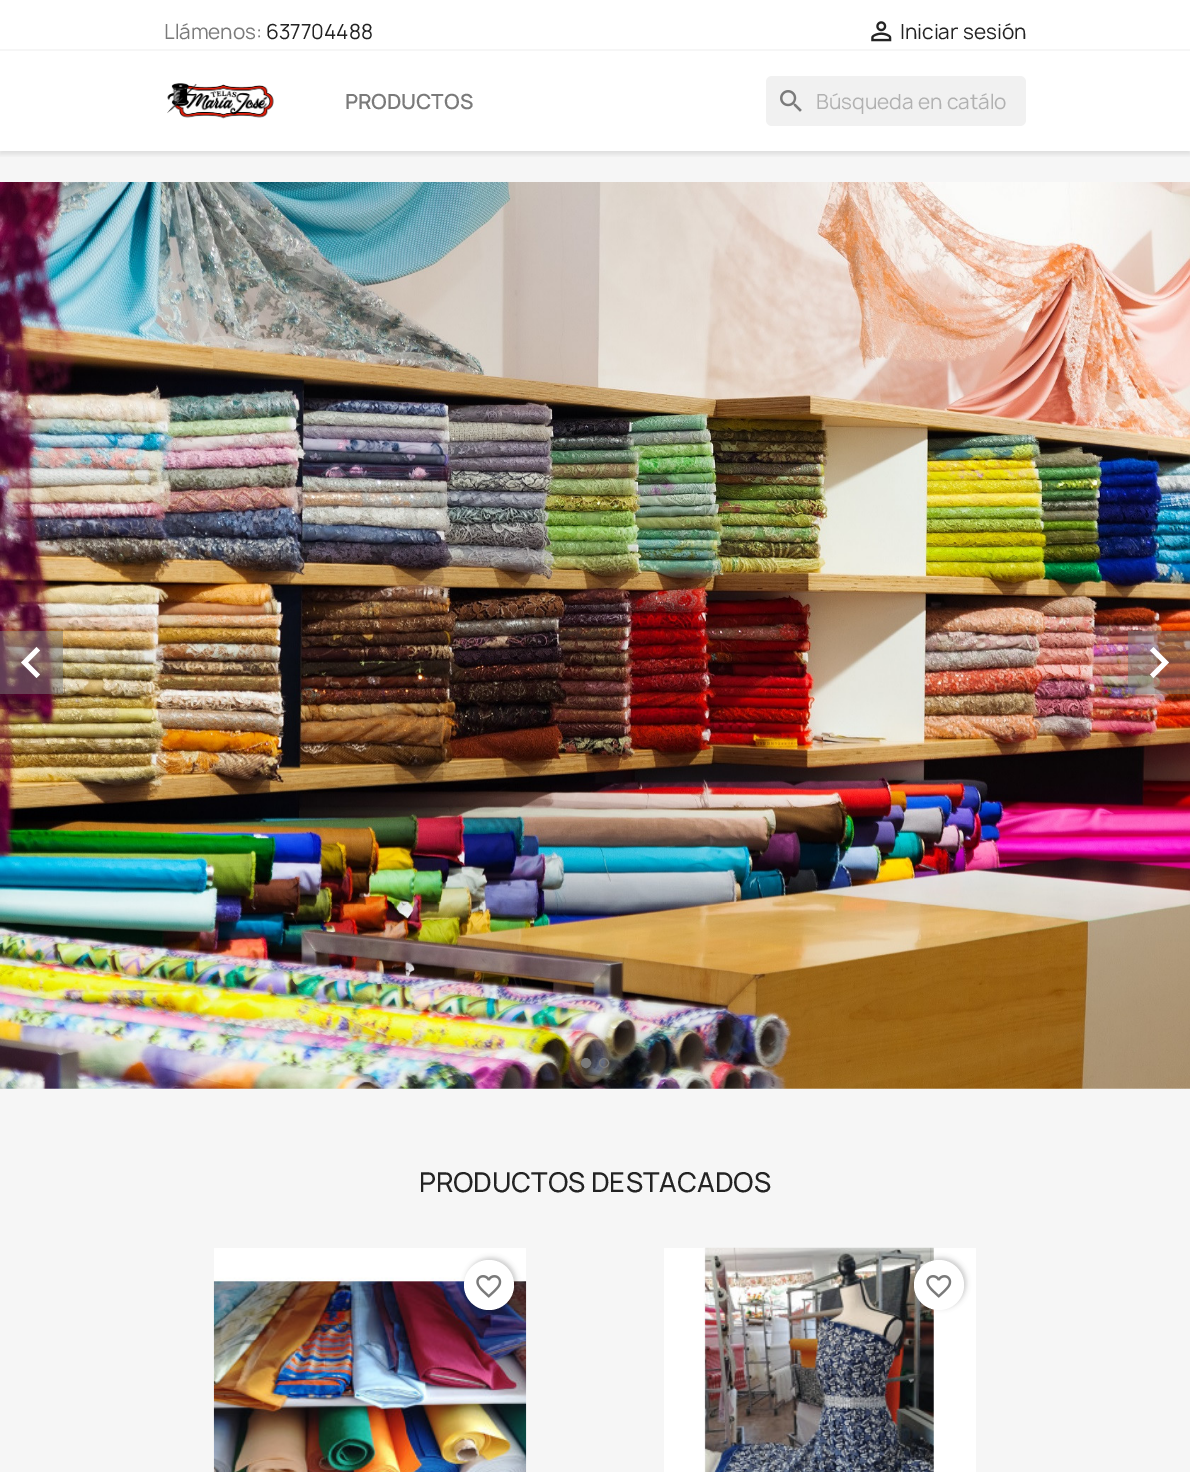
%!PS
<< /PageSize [1190 1472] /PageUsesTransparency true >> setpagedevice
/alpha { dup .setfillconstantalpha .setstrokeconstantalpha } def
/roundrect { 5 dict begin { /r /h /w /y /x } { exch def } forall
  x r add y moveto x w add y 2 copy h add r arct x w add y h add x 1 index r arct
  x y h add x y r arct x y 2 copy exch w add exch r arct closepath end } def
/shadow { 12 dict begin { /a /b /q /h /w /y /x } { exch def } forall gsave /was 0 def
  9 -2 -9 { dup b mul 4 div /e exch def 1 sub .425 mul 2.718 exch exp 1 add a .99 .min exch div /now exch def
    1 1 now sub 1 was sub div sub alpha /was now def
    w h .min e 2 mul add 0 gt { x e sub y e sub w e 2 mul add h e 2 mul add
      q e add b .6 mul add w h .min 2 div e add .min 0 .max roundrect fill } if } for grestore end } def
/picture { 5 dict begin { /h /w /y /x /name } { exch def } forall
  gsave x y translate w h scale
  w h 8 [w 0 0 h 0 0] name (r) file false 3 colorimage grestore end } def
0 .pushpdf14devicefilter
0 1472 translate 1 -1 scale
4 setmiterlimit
1 setgray
0 0 1190 1472 rectfill
0.965 setgray
0 151 1190 1321 rectfill
gsave
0 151 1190 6 rectclip
0 setgray
0 3 1190 151 0 3 0.11 shadow
grestore
0 49 1190 2 rectfill
/Manrope-Regular [20 0 0 -20 0 0] selectfont
0.478 setgray
164 39 moveto (Llámenos:) show
0.137 setgray
266 39 moveto (637704488) show
(img1.rgb) 871 21 21 21 picture
900 39 moveto (Iniciar sesión) show
(img2.rgb) 167 83 107 36 picture
/Manrope-SemiBold [20 0 0 -20 0 0] selectfont
0.478 setgray
345 109 moveto (PRODUCTOS) show
0.945 setgray
766 76 260 50 6 roundrect fill
(img3.rgb) 780 90 22 22 picture
/Manrope-Regular [20 0 0 -20 0 0] selectfont
0.694 setgray
816 109 moveto (Búsqueda en catálo) show
(img4.rgb) 0 182 1190 907 picture
0.5 alpha
0.478 setgray
0 631 63 63 rectfill
1 alpha
1 setgray
newpath 40 650.5 moveto 28 662.5 lineto 40 674.5 lineto 36.5 678 lineto 21 662.5 lineto 36.5 647 lineto closepath fill
0.5 alpha
0.478 setgray
1128 631 62 63 rectfill
1 alpha
1 setgray
newpath 1153.5 647 moveto 1169 662.5 lineto 1153.5 678 lineto 1150 674.5 lineto 1162 662.5 lineto 1150 650.5 lineto closepath fill
0.478 setgray
newpath 586 1063 4.5 0 360 arc closepath gsave fill grestore
stroke
newpath 604 1063 4.5 0 360 arc closepath stroke
/Manrope-Medium [26.25 0 0 -26.25 0 0] selectfont
0.137 setgray
419 1192 moveto (PRODUCTOS DESTACADOS) show
1 setgray
214 1248 312 29 rectfill
(img6.rgb) 213 1277 314 195 picture
0 setgray
466 1258 50 50 25 2.5 0.2 shadow
1 setgray
newpath 489 1285 25 0 360 arc closepath fill
(img5.rgb) 476 1275 26 23 picture
664 1248 312 224 rectfill
(img7.rgb) 703 1247 231 225 picture
0 setgray
916 1258 50 50 25 2.5 0.2 shadow
1 setgray
newpath 939 1285 25 0 360 arc closepath fill
(img5.rgb) 926 1275 26 23 picture
.poppdf14devicefilter showpage
